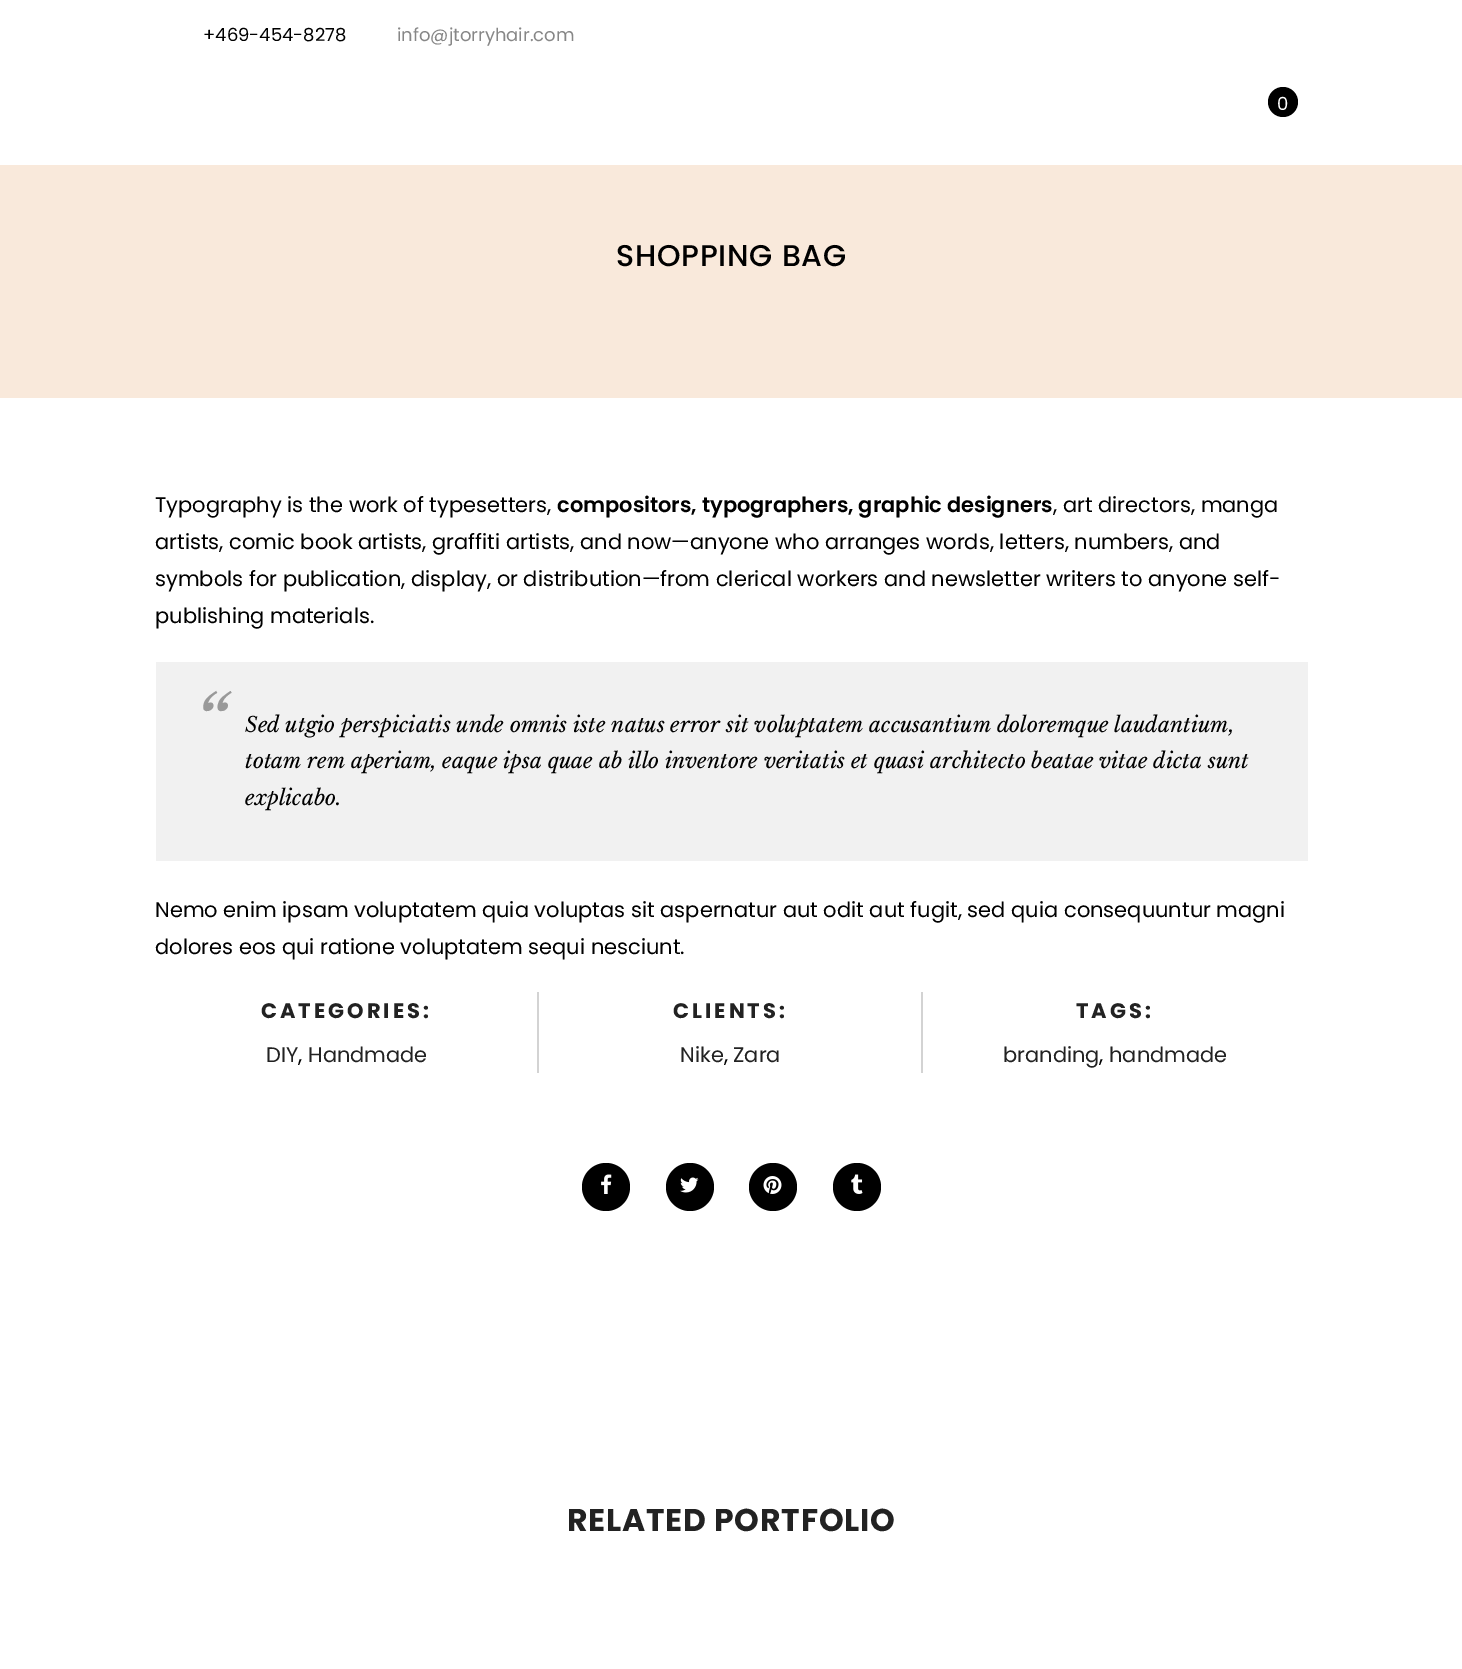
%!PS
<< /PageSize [1462 1669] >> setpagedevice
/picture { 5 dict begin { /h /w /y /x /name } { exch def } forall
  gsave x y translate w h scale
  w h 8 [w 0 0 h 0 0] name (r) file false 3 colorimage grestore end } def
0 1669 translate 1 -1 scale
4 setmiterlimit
1 setgray
0 0 1462 1669 rectfill
/Poppins-Regular [18 0 0 -18 0 0] selectfont
0 setgray
203 41 moveto (+469-454-8278) show
0.529 setgray
397 41 moveto (info@jtorryhair.com) show
0 setgray
newpath 1283 102 15 0 360 arc closepath fill
1 setgray
1277 110 moveto (0) show
0.976 0.914 0.859 setrgbcolor
0 165 1462 233 rectfill
/Poppins-Medium [30 0 0 -30 0 0] selectfont
0 setgray
616 266 moveto 0.75 0 (SHOPPING BAG) ashow
/Poppins-Regular [21 0 0 -21 0 0] selectfont
155 512 moveto (Typography is the work of typesetters,) show
/Poppins-SemiBold [21 0 0 -21 0 0] selectfont
557 512 moveto (compositors, typographers, graphic designers) show
/Poppins-Regular [21 0 0 -21 0 0] selectfont
1053 512 moveto (, art directors, manga) show
155 549 moveto (artists, comic book artists, graffiti artists, and now—anyone who arranges words, letters, numbers, and) show
155 586 moveto (symbols for publication, display, or distribution—from clerical workers and newsletter writers to anyone self-) show
155 623 moveto (publishing materials.) show
0.945 setgray
156 662 1152 199 rectfill
/LibreBaskerville-Italic [75 0 0 -75 0 0] selectfont
0.6 setgray
193 753 moveto (“) show
/LibreBaskerville-Italic [21 0 0 -21 0 0] selectfont
0 setgray
245 732 moveto (Sed utgio perspiciatis unde omnis iste natus error sit voluptatem accusantium doloremque laudantium,) show
245 768 moveto (totam rem aperiam, eaque ipsa quae ab illo inventore veritatis et quasi architecto beatae vitae dicta sunt) show
245 805 moveto (explicabo.) show
/Poppins-Regular [21 0 0 -21 0 0] selectfont
155 917 moveto (Nemo enim ipsam voluptatem quia voluptas sit aspernatur aut odit aut fugit, sed quia consequuntur magni) show
155 954 moveto (dolores eos qui ratione voluptatem sequi nesciunt.) show
0.827 setgray
537 992 2 81 rectfill
/Poppins-Bold [21 0 0 -21 0 0] selectfont
0.133 setgray
261 1018 moveto 3 0 (CATEGORIES:) ashow
/Poppins-Regular [21 0 0 -21 0 0] selectfont
266 1062 moveto (DIY) show
0 setgray
298 1062 moveto (,) show
0.133 setgray
308 1062 moveto (Handmade) show
0.827 setgray
921 992 2 81 rectfill
/Poppins-Bold [21 0 0 -21 0 0] selectfont
0.133 setgray
673 1018 moveto 3 0 (CLIENTS:) ashow
/Poppins-Regular [21 0 0 -21 0 0] selectfont
680 1062 moveto (Nike) show
0 setgray
724 1062 moveto (,) show
0.133 setgray
733 1062 moveto (Zara) show
/Poppins-Bold [21 0 0 -21 0 0] selectfont
1076 1018 moveto 3 0 (TAGS:) ashow
/Poppins-Regular [21 0 0 -21 0 0] selectfont
1003 1062 moveto (branding) show
0 setgray
1099 1062 moveto (,) show
0.133 setgray
1109 1062 moveto (handmade) show
0 setgray
newpath 606 1187 24 0 360 arc closepath fill
(img1.rgb) 601 1174 11 20 picture
newpath 690 1187 24 0 360 arc closepath fill
(img2.rgb) 680 1177 19 16 picture
newpath 773 1187 24 0 360 arc closepath fill
(img3.rgb) 763 1176 19 18 picture
newpath 857 1187 24 0 360 arc closepath fill
(img4.rgb) 851 1174 12 20 picture
/Poppins-Bold [31.5 0 0 -31.5 0 0] selectfont
0.133 setgray
567 1531 moveto 0.75 0 (RELATED PORTFOLIO) ashow
showpage
